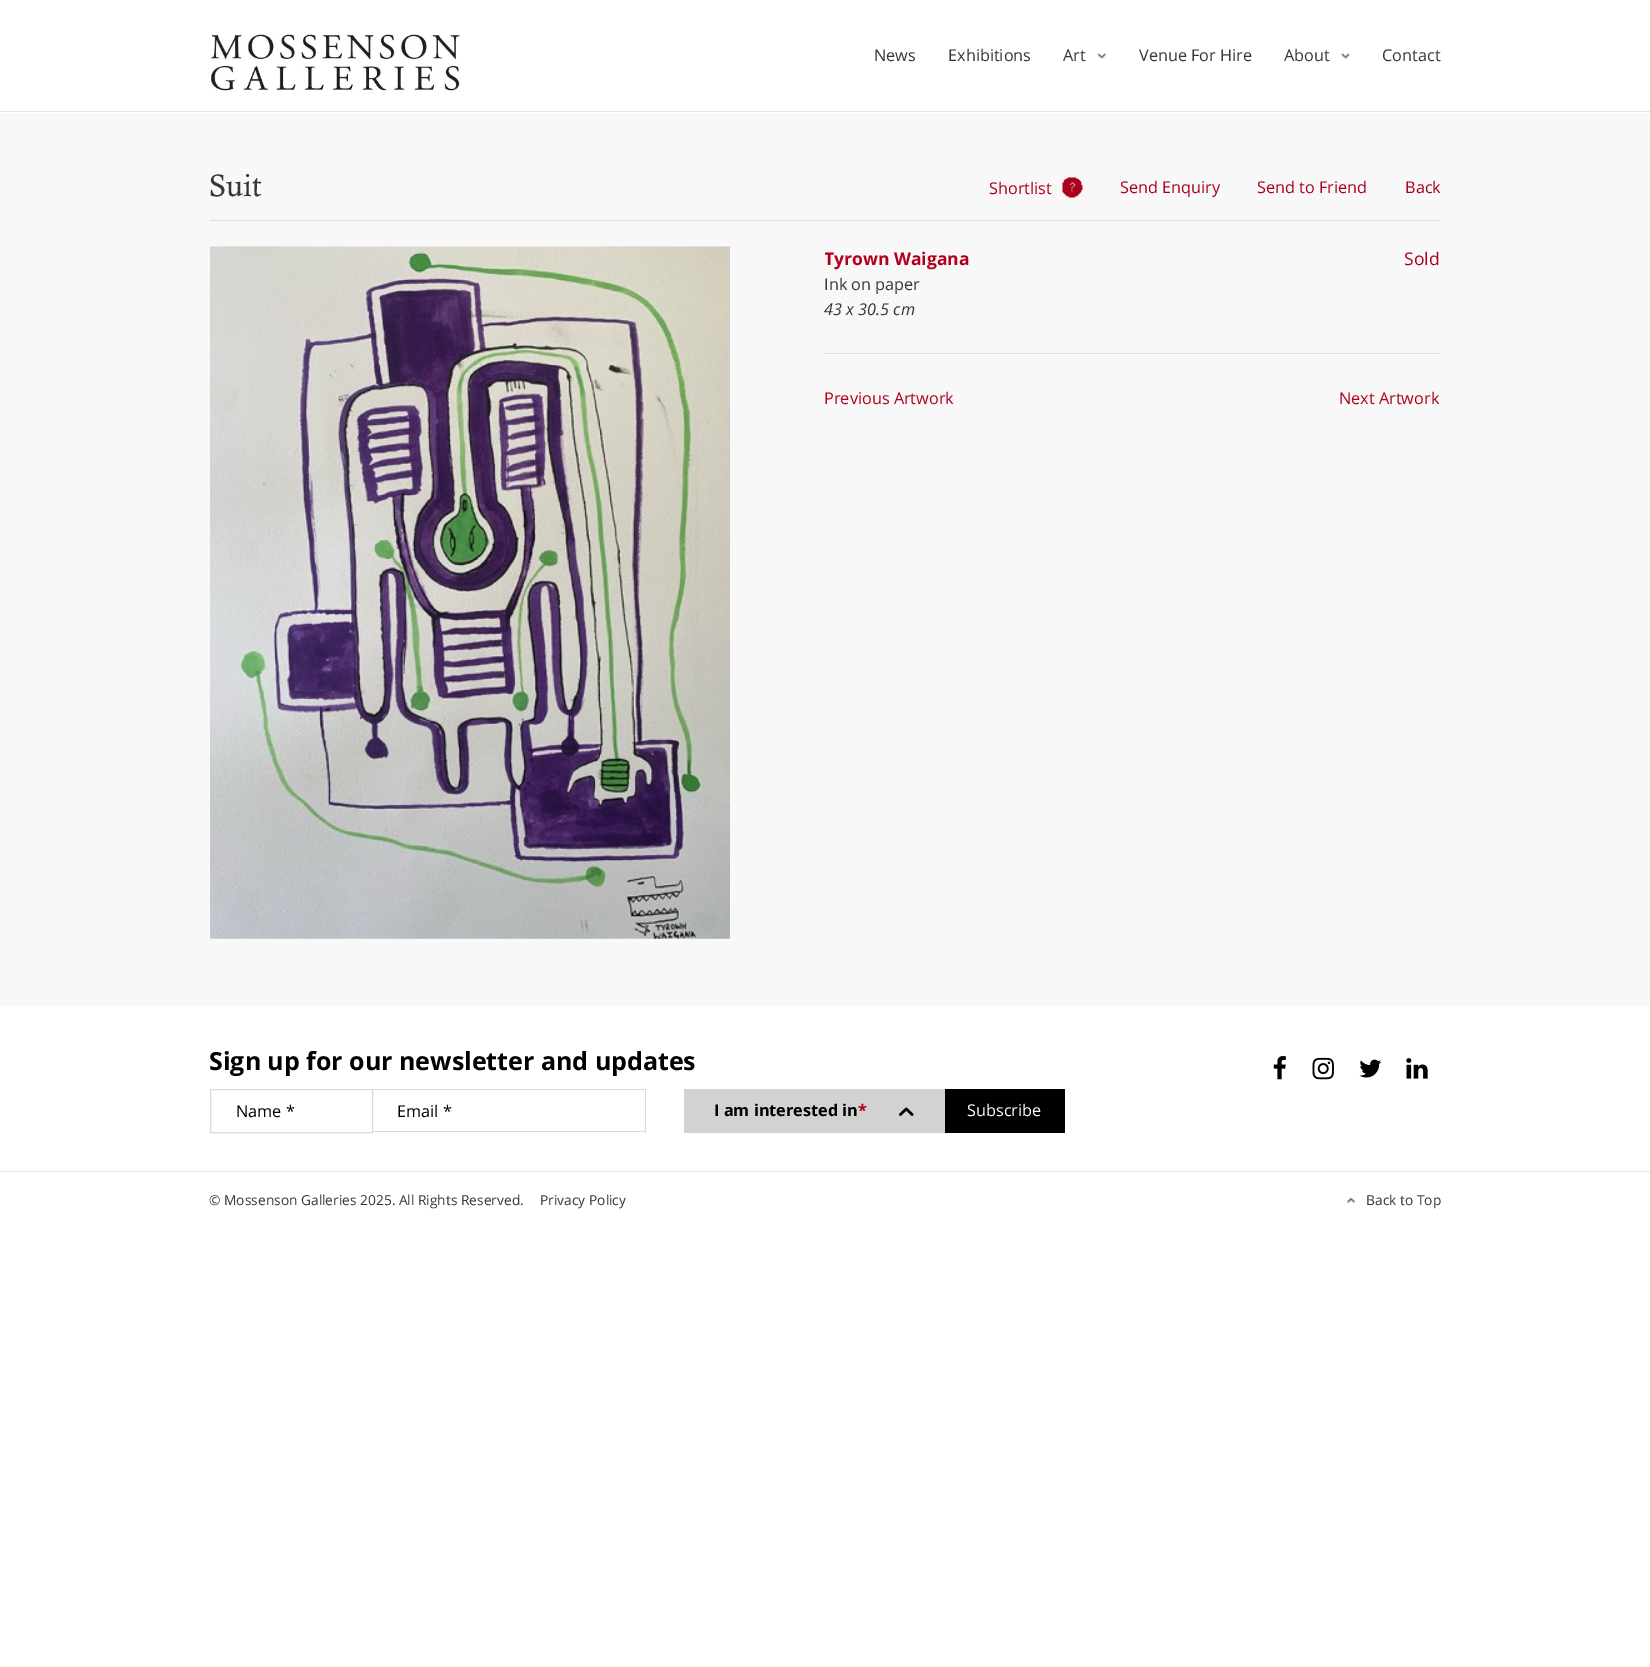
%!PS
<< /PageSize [1650 1667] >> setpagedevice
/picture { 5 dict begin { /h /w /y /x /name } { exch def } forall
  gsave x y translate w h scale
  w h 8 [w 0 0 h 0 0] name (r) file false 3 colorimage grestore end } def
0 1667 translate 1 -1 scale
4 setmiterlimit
1 setgray
0 0 1650 1667 rectfill
0.898 setgray
0 111 1650 1 rectfill
(img1.rgb) 210 34 250 57 picture
/OpenSans-Regular [16.25 0 0 -16.25 0 0] selectfont
0.212 setgray
874 61 moveto (News) show
948 61 moveto (Exhibitions) show
(img2.rgb) 1097 53 10 6 picture
1063 61 moveto (Art) show
1139 61 moveto (Venue For Hire) show
(img3.rgb) 1341 53 9 6 picture
1284 61 moveto (About) show
1382 61 moveto (Contact) show
0.973 setgray
0 113 1650 893 rectfill
0.875 setgray
210 220 1231 1 rectfill
/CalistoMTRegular-Regular [31 0 0 -31 0 0] selectfont
0.212 setgray
209 196 moveto (Suit) show
/OpenSans-Regular [16.25 0 0 -16.25 0 0] selectfont
0.671 0 0.114 setrgbcolor
989 194 moveto (Shortlist) show
(img4.rgb) 1062 177 21 21 picture
1120 193 moveto (Send Enquiry) show
1257 193 moveto (Send to Friend) show
1405 193 moveto (Back) show
(img5.rgb) 210 246 520 693 picture
0.875 setgray
825 353 615 1 rectfill
gsave
825 246 615 107 rectclip
/OpenSans-Bold [17.5 0 0 -17.5 0 0] selectfont
0.694 0 0.114 setrgbcolor
824 265 moveto (Tyrown Waigana) show
grestore
0.212 setgray
824 290 moveto (Ink on paper) show
/OpenSans-Italic [16.25 0 0 -16.25 0 0] selectfont
824 315 moveto (43 x 30.5 cm) show
/OpenSans-Regular [17.5 0 0 -17.5 0 0] selectfont
0.671 0 0.114 setrgbcolor
1404 265 moveto (Sold) show
/OpenSans-Regular [16.25 0 0 -16.25 0 0] selectfont
0.694 0 0.114 setrgbcolor
824 404 moveto (Previous Artwork) show
1339 404 moveto (Next Artwork) show
/OpenSans-Bold [25 0 0 -25 0 0] selectfont
0 setgray
209 1070 moveto (Sign up for our newsletter and updates) show
0.855 setgray
210.5 1089.5 162 43 rectstroke
/OpenSans-Regular [16.25 0 0 -16.25 0 0] selectfont
0 setgray
236 1117 moveto (Name *) show
0.855 setgray
373 1089 273 1 rectfill
645 1089 1 44 rectfill
373 1131 273 1 rectfill
0 setgray
397 1117 moveto (Email *) show
0.824 setgray
684 1089 261 44 rectfill
/OpenSans-Bold [16.25 0 0 -16.25 0 0] selectfont
0 setgray
714 1116 moveto (I am interested in) show
0.671 0 0.114 setrgbcolor
858 1116 moveto (*) show
(img6.rgb) 899 1107 15 9 picture
0 setgray
945 1089 120 44 rectfill
/OpenSans-Regular [16.25 0 0 -16.25 0 0] selectfont
1 setgray
967 1116 moveto (Subscribe) show
(img7.rgb) 1273 1056 13 24 picture
(img8.rgb) 1312 1057 22 23 picture
(img9.rgb) 1359 1059 23 19 picture
(img10.rgb) 1406 1058 22 21 picture
0.898 setgray
0 1171 1650 1 rectfill
/OpenSans-Regular [13.75 0 0 -13.75 0 0] selectfont
0.212 setgray
209 1205 moveto (© Mossenson Galleries 2025. All Rights Reserved.) show
540 1205 moveto (Privacy Policy) show
(img11.rgb) 1346 1197 9 6 picture
1366 1205 moveto (Back to Top) show
showpage
